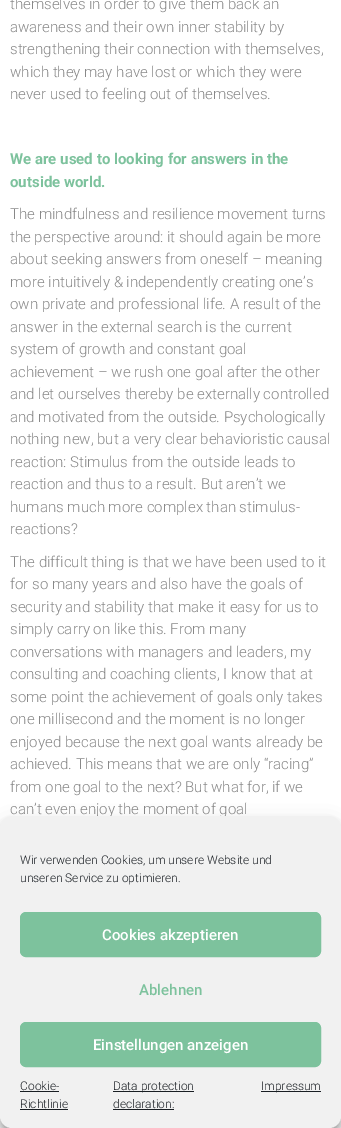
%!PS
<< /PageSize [341 1128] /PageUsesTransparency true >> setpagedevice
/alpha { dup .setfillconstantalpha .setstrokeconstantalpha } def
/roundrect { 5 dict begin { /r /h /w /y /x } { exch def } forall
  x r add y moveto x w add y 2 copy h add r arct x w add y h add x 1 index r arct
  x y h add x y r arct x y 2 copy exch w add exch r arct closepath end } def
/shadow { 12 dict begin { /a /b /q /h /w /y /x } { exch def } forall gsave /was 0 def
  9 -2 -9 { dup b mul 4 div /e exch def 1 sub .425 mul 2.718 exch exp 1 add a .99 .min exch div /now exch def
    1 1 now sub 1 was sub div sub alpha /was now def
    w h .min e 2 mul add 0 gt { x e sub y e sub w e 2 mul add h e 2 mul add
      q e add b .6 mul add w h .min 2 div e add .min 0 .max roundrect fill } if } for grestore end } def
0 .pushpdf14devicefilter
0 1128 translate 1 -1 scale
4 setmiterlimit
1 setgray
0 0 341 1128 rectfill
/Roboto-Light [15 0 0 -15 0 0] selectfont
0.533 setgray
10 9 moveto (themselves in order to give them back an) show
10 32 moveto (awareness and their own inner stability by) show
10 54 moveto (strengthening their connection with themselves,) show
10 77 moveto (which they may have lost or which they were) show
10 99 moveto (never used to feeling out of themselves.) show
/Roboto-Bold [15 0 0 -15 0 0] selectfont
0.49 0.761 0.616 setrgbcolor
10 164 moveto (We are used to looking for answers in the) show
10 187 moveto (outside world.) show
/Roboto-Light [15 0 0 -15 0 0] selectfont
0.533 setgray
10 219 moveto (The mindfulness and resilience movement turns) show
10 242 moveto (the perspective around: it should again be more) show
10 264 moveto (about seeking answers from oneself – meaning) show
10 287 moveto (more intuitively & independently creating one’s) show
10 309 moveto (own private and professional life. A result of the) show
10 332 moveto (answer in the external search is the current) show
10 354 moveto (system of growth and constant goal) show
10 377 moveto (achievement – we rush one goal after the other) show
10 399 moveto (and let ourselves thereby be externally controlled) show
10 422 moveto (and motivated from the outside. Psychologically) show
10 444 moveto (nothing new, but a very clear behavioristic causal) show
10 467 moveto (reaction: Stimulus from the outside leads to) show
10 489 moveto (reaction and thus to a result. But aren’t we) show
10 512 moveto (humans much more complex than stimulus-) show
10 534 moveto (reactions?) show
10 567 moveto (The difficult thing is that we have been used to it) show
10 589 moveto (for so many years and also have the goals of) show
10 612 moveto (security and stability that make it easy for us to) show
10 634 moveto (simply carry on like this. From many) show
10 657 moveto (conversations with managers and leaders, my) show
10 679 moveto (consulting and coaching clients, I know that at) show
10 702 moveto (some point the achievement of goals only takes) show
10 724 moveto (one millisecond and the moment is no longer) show
10 747 moveto (enjoyed because the next goal wants already be) show
10 769 moveto (achieved. This means that we are only “racing”) show
10 792 moveto (from one goal to the next? But what for, if we) show
10 814 moveto (can’t even enjoy the moment of goal) show
0 setgray
0 822 341 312 12 3 0.23 shadow
0 826 341 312 12 10 0.19 shadow
0.945 setgray
0 816 341 312 12 roundrect fill
/Roboto-Light [12 0 0 -12 0 0] selectfont
0.098 0.118 0.137 setrgbcolor
20 864 moveto (Wir verwenden Cookies, um unsere Website und) show
20 882 moveto (unseren Service zu optimieren.) show
0.49 0.761 0.616 setrgbcolor
20.5 912.5 300 44 5.5 roundrect gsave fill grestore
stroke
/Roboto-Medium [15 0 0 -15 0 0] selectfont
1 setgray
102 940 moveto (Cookies akzeptieren) show
0.49 0.761 0.616 setrgbcolor
139 995 moveto (Ablehnen) show
20.5 1022.5 300 44 5.5 roundrect gsave fill grestore
stroke
1 setgray
93 1050 moveto (Einstellungen anzeigen) show
/Roboto-Light [12 0 0 -12 0 0] selectfont
0.098 0.118 0.137 setrgbcolor
20 1090 moveto (Cookie-) show
20 1091 39 1 rectfill
20 1108 moveto (Richtlinie) show
20 1109 48 1 rectfill
113 1091 81 1 rectfill
113 1090 moveto (Data protection) show
113 1108 moveto (declaration:) show
113 1109 61 1 rectfill
261 1091 60 1 rectfill
261 1090 moveto (Impressum) show
.poppdf14devicefilter showpage
